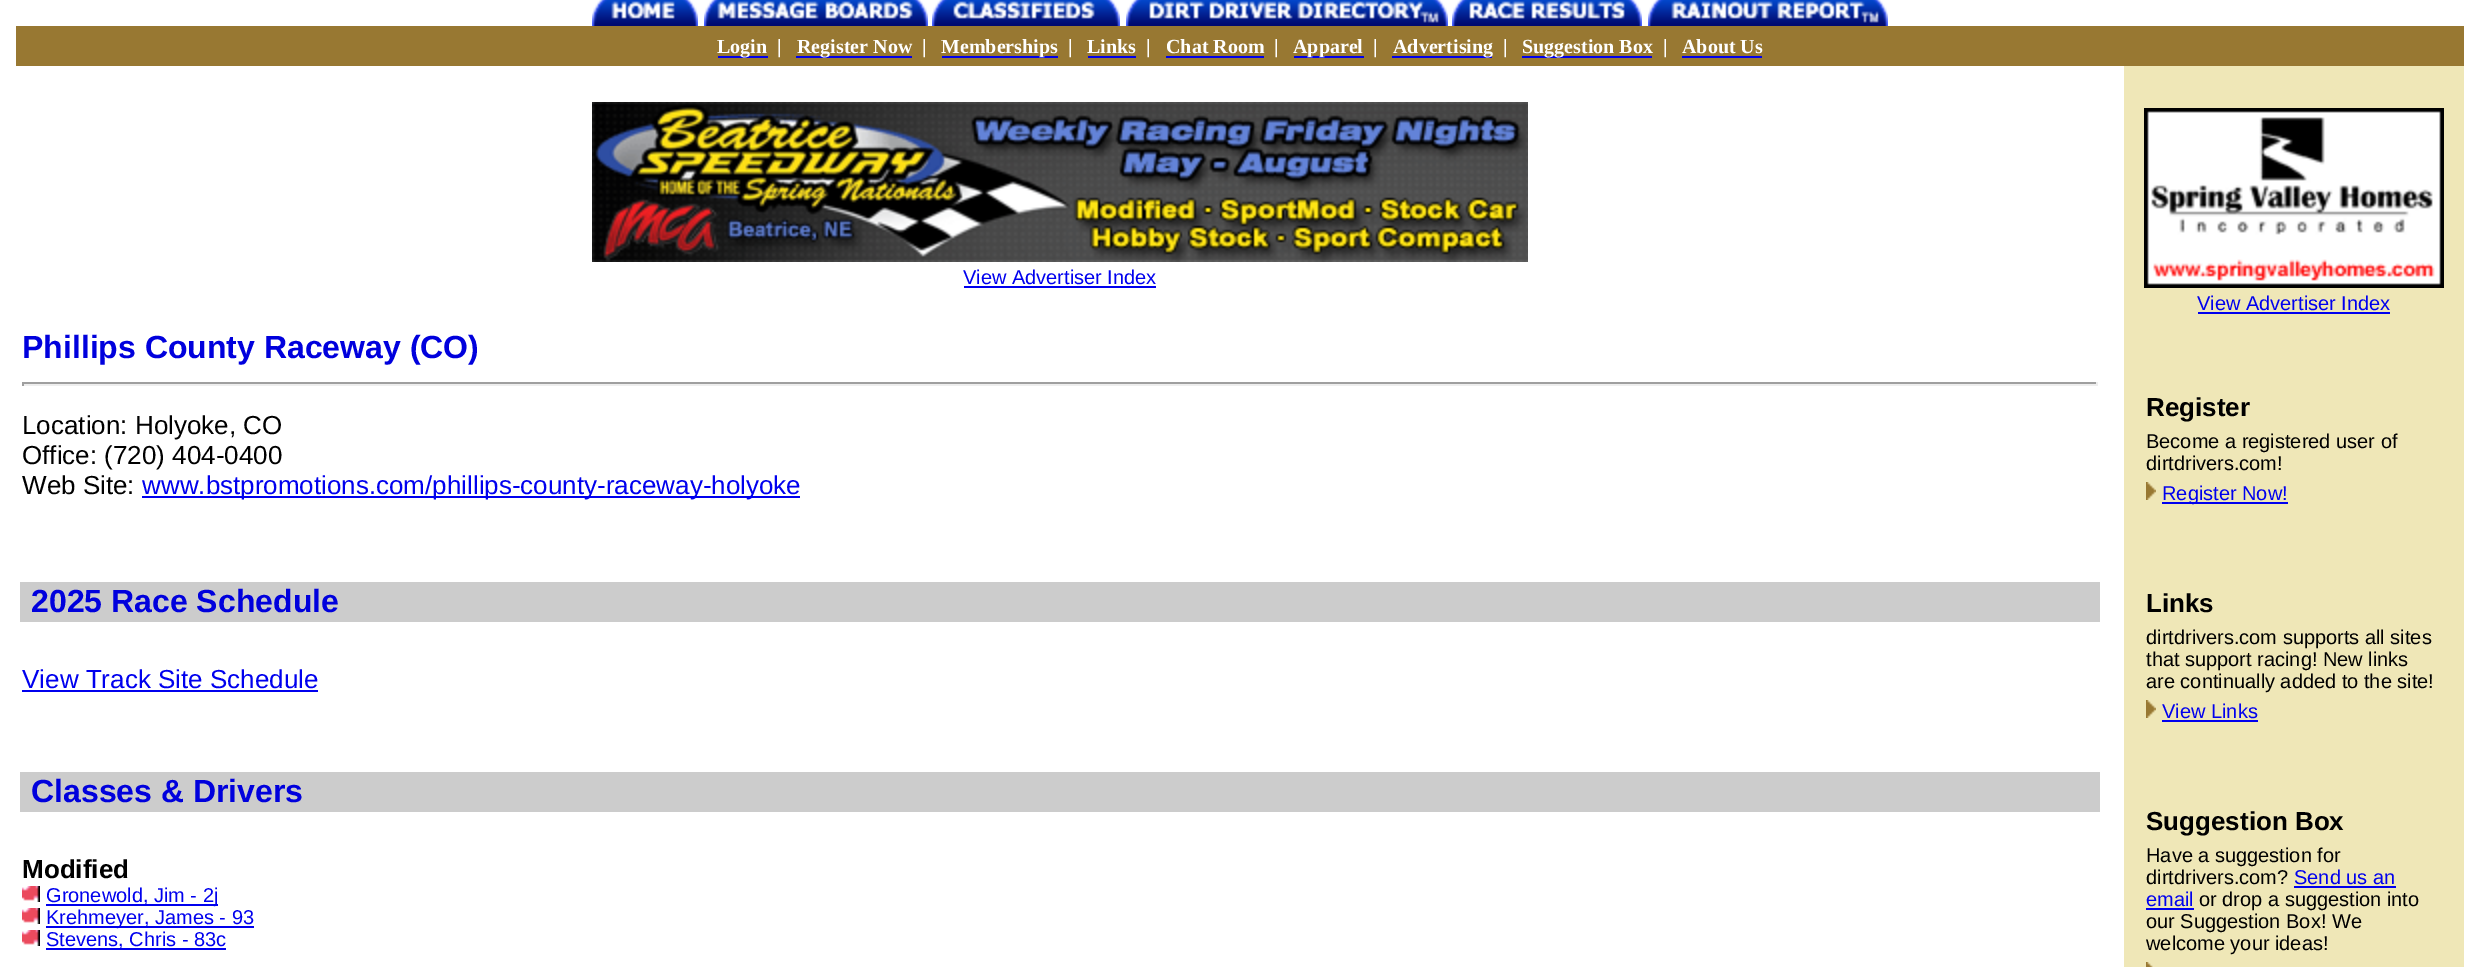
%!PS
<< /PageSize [2480 967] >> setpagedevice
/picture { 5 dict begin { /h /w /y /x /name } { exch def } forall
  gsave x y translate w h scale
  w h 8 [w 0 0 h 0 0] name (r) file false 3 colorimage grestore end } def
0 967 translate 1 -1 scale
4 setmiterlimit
1 setgray
0 0 2480 967 rectfill
(img1.rgb) 592 0 106 26 picture
(img2.rgb) 704 0 224 26 picture
(img3.rgb) 932 0 188 26 picture
(img4.rgb) 1126 0 322 26 picture
(img5.rgb) 1452 0 190 26 picture
(img6.rgb) 1648 0 240 26 picture
0.596 0.471 0.196 setrgbcolor
16 26 2448 40 rectfill
0 0 0.933 setrgbcolor
718 56 50 2 rectfill
/LiberationSerif-Bold [20 0 0 -20 0 0] selectfont
1 setgray
717 53 moveto (Login) show
777 53 moveto (|) show
0 0 0.933 setrgbcolor
796 56 116 2 rectfill
1 setgray
797 53 moveto (Register Now) show
922 53 moveto (|) show
0 0 0.933 setrgbcolor
942 56 116 2 rectfill
1 setgray
941 53 moveto (Memberships) show
1068 53 moveto (|) show
1087 53 moveto (Links) show
0 0 0.933 setrgbcolor
1088 56 48 2 rectfill
1 setgray
1146 53 moveto (|) show
1166 53 moveto (Chat Room) show
0 0 0.933 setrgbcolor
1166 56 98 2 rectfill
1 setgray
1274 53 moveto (|) show
0 0 0.933 setrgbcolor
1294 56 70 2 rectfill
1 setgray
1293 53 moveto (Apparel) show
1373 53 moveto (|) show
0 0 0.933 setrgbcolor
1392 56 100 2 rectfill
1 setgray
1393 53 moveto (Advertising) show
1503 53 moveto (|) show
0 0 0.933 setrgbcolor
1522 56 130 2 rectfill
1 setgray
1522 53 moveto (Suggestion Box) show
1663 53 moveto (|) show
1682 53 moveto (About Us) show
0 0 0.933 setrgbcolor
1682 56 80 2 rectfill
(img7.rgb) 592 102 936 160 picture
/LiberationSans-Regular [20 0 0 -20 0 0] selectfont
963 284 moveto (View Advertiser Index) show
964 286 192 2 rectfill
/LiberationSans-Bold [32 0 0 -32 0 0] selectfont
0 0 0.867 setrgbcolor
22 358 moveto (Phillips County Raceway \(CO\)) show
0.624 setgray
22 382 2076 2 rectfill
0.933 setgray
2096 382 2 4 rectfill
22 384 2076 2 rectfill
0.624 setgray
22 382 2 4 rectfill
/LiberationSans-Regular [26 0 0 -26 0 0] selectfont
0 setgray
22 434 moveto (Location: Holyoke, CO) show
22 464 moveto (Office: \(720\) 404-0400) show
22 494 moveto (Web Site:) show
0 0 0.933 setrgbcolor
142 496 658 2 rectfill
142 494 moveto (www.bstpromotions.com/phillips-county-raceway-holyoke) show
0.8 setgray
20 582 2080 40 rectfill
/LiberationSans-Bold [32 0 0 -32 0 0] selectfont
0 0 0.867 setrgbcolor
31 612 moveto (2025 Race Schedule) show
/LiberationSans-Regular [26 0 0 -26 0 0] selectfont
0 0 0.933 setrgbcolor
22 688 moveto (View Track Site Schedule) show
22 690 296 2 rectfill
0.8 setgray
20 772 2080 40 rectfill
/LiberationSans-Bold [32 0 0 -32 0 0] selectfont
0 0 0.867 setrgbcolor
31 802 moveto (Classes & Drivers) show
/LiberationSans-Bold [26 0 0 -26 0 0] selectfont
0 setgray
22 878 moveto (Modified) show
(img8.rgb) 22 886 18 16 picture
0 0 0.933 setrgbcolor
46 904 172 2 rectfill
/LiberationSans-Regular [20 0 0 -20 0 0] selectfont
46 902 moveto (Gronewold, Jim - 2j) show
(img8.rgb) 22 908 18 16 picture
46 926 208 2 rectfill
46 924 moveto (Krehmeyer, James - 93) show
(img8.rgb) 22 930 18 16 picture
46 948 180 2 rectfill
46 946 moveto (Stevens, Chris - 83c) show
0.937 0.906 0.718 setrgbcolor
2124 66 340 901 rectfill
(img9.rgb) 2144 108 300 180 picture
0 0 0.933 setrgbcolor
2197 310 moveto (View Advertiser Index) show
2198 312 192 2 rectfill
/LiberationSans-Bold [26 0 0 -26 0 0] selectfont
0 setgray
2146 416 moveto (Register) show
/LiberationSans-Regular [20 0 0 -20 0 0] selectfont
2146 448 moveto (Become a registered user of) show
2146 470 moveto (dirtdrivers.com!) show
(img10.rgb) 2146 482 10 18 picture
0 0 0.933 setrgbcolor
2162 502 126 2 rectfill
2162 500 moveto (Register Now!) show
/LiberationSans-Bold [26 0 0 -26 0 0] selectfont
0 setgray
2146 612 moveto (Links) show
/LiberationSans-Regular [20 0 0 -20 0 0] selectfont
2146 644 moveto (dirtdrivers.com supports all sites) show
2146 666 moveto (that support racing! New links) show
2146 688 moveto (are continually added to the site!) show
(img10.rgb) 2146 700 10 18 picture
0 0 0.933 setrgbcolor
2162 718 moveto (View Links) show
2162 720 96 2 rectfill
/LiberationSans-Bold [26 0 0 -26 0 0] selectfont
0 setgray
2146 830 moveto (Suggestion Box) show
/LiberationSans-Regular [20 0 0 -20 0 0] selectfont
2146 862 moveto (Have a suggestion for) show
2146 884 moveto (dirtdrivers.com?) show
0 0 0.933 setrgbcolor
2294 884 moveto (Send us an) show
2294 886 102 2 rectfill
2146 906 moveto (email) show
2146 908 48 2 rectfill
0 setgray
2199 906 moveto (or drop a suggestion into) show
2146 928 moveto (our Suggestion Box! We) show
2146 950 moveto (welcome your ideas!) show
(img11.rgb) 2146 962 7 5 picture
showpage
